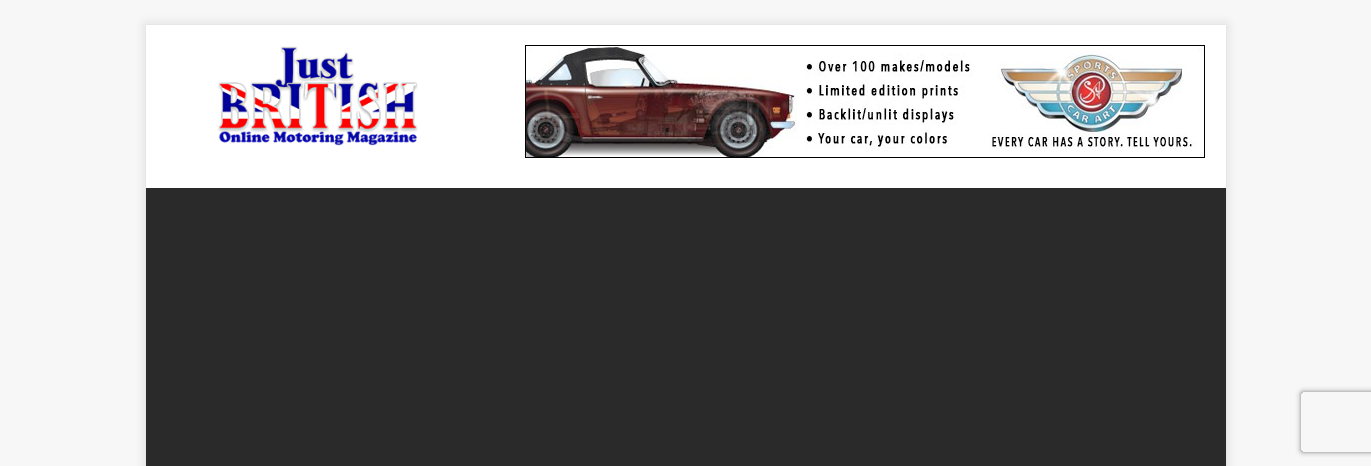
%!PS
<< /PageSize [1371 466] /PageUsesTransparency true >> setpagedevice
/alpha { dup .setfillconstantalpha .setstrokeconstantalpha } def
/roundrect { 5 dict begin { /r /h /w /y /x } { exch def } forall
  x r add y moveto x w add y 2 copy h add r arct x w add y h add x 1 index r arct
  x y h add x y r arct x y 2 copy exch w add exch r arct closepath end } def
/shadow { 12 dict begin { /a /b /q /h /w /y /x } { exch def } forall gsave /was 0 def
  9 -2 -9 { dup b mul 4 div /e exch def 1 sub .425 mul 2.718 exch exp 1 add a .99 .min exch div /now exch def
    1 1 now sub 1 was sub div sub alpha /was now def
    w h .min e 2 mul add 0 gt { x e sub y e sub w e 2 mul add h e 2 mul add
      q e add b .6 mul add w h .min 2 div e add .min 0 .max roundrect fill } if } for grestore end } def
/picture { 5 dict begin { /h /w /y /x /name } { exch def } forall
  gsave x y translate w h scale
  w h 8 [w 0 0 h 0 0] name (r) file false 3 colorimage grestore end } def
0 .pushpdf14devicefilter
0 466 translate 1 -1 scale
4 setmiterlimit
0.969 setgray
0 0 1371 466 rectfill
0.196 setgray
146 25 1080 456 0 5 0.17 shadow
1 setgray
146 25 1080 163 rectfill
(img1.rgb) 218 46 200 100 picture
(img2.rgb) 525 45 680 113 picture
0.165 setgray
146 188 1080 278 rectfill
gsave
newpath 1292 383 moveto 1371 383 lineto 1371 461 lineto 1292 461 lineto closepath 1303 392 moveto 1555 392 lineto 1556 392 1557 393 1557 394 curveto 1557 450 lineto 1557 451 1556 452 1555 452 curveto 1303 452 lineto 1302 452 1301 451 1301 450 curveto 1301 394 lineto 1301 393 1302 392 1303 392 curveto closepath eoclip newpath
0.502 setgray
1301 392 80 60 2 2.5 1 shadow
grestore
.poppdf14devicefilter showpage
